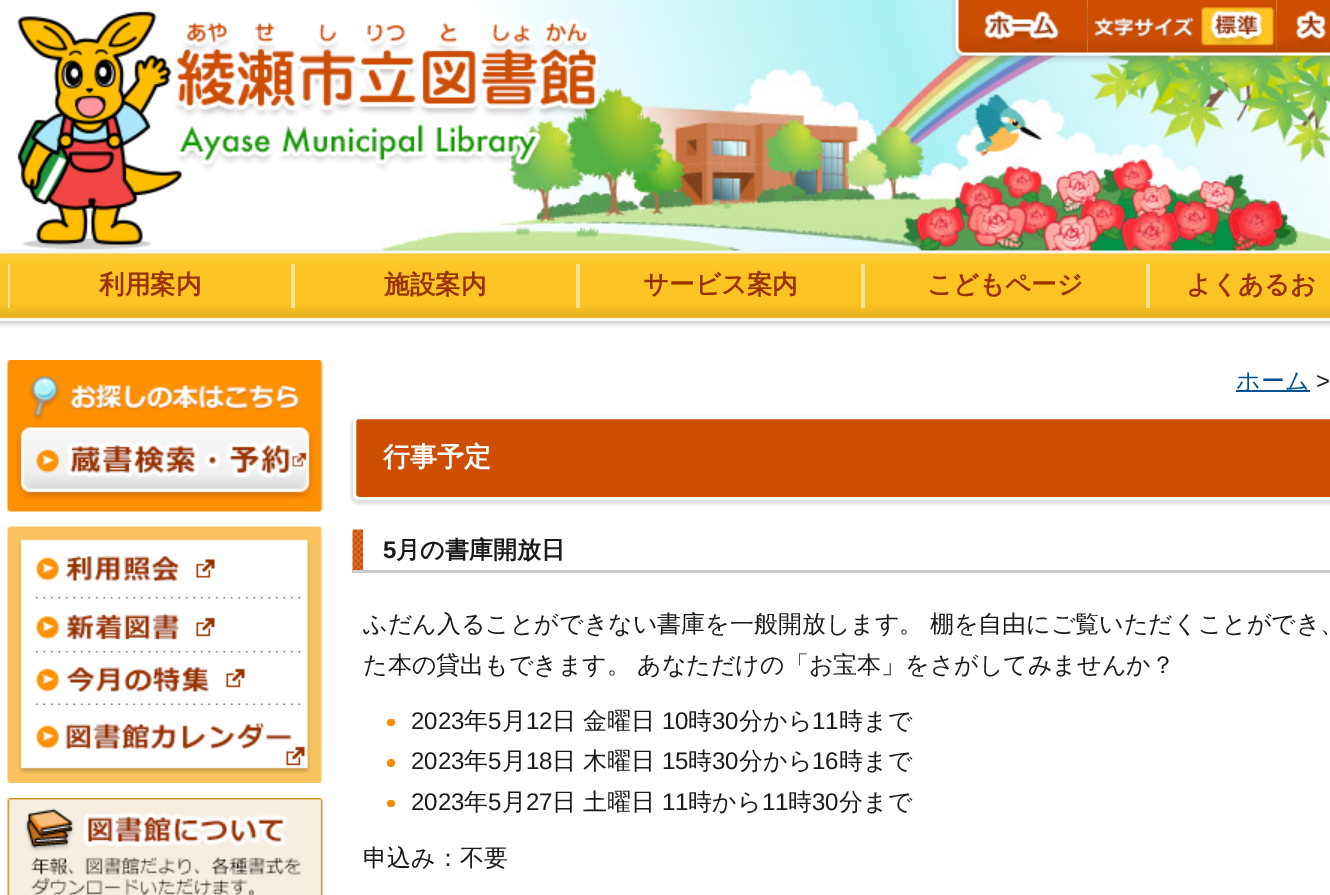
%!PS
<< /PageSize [1330 895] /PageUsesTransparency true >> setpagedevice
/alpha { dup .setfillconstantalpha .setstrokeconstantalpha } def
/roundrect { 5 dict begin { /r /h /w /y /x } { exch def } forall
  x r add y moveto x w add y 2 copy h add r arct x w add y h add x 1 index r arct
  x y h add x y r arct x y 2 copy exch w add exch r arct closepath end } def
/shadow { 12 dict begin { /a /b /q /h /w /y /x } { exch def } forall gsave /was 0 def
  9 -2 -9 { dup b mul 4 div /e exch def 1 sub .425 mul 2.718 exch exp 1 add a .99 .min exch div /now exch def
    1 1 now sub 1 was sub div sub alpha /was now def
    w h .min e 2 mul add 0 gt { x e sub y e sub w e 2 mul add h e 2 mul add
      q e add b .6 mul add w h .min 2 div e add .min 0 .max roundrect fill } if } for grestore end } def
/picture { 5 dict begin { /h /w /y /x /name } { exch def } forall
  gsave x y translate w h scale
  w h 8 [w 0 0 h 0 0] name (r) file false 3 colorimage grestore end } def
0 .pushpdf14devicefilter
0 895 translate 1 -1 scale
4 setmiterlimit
1 setgray
0 0 1330 895 rectfill
(img1.rgb) 0 249 1330 79 picture
(img2.rgb) 379 0 951 251 picture
(img3.rgb) 8 11 593 239 picture
(img4.rgb) 951 0 137 63 picture
(img5.rgb) 1087 0 113 63 picture
(img6.rgb) 1200 0 77 63 picture
(img7.rgb) 1276 0 54 63 picture
0.988 0.886 0.584 setrgbcolor
291 264 4 44 rectfill
8 264 2 44 rectfill
/WenQuanYiZenHei-Bold [25.5 0 0 -25.5 0 0] selectfont
0.6 0.196 0 setrgbcolor
99 293 moveto (利用案内) show
0.988 0.886 0.584 setrgbcolor
576 264 4 44 rectfill
0.6 0.196 0 setrgbcolor
384 293 moveto (施設案内) show
0.988 0.886 0.584 setrgbcolor
861 264 4 44 rectfill
0.6 0.196 0 setrgbcolor
643 293 moveto (サービス案内) show
0.988 0.886 0.584 setrgbcolor
1146 264 4 44 rectfill
0.6 0.196 0 setrgbcolor
927 293 moveto (こどもページ) show
1186 293 moveto (よくあるお) show
(img8.rgb) 7 360 316 152 picture
(img9.rgb) 7 526 316 71 picture
(img10.rgb) 7 597 316 54 picture
(img11.rgb) 7 651 316 54 picture
(img12.rgb) 7 705 316 78 picture
(img13.rgb) 7 798 316 97 picture
0 0.322 0.576 setrgbcolor
1236 390 74 2 rectfill
/WenQuanYiZenHei-Medium [24 0 0 -24 0 0] selectfont
1236 389 moveto (ホーム) show
/LiberationSans-Regular [24 0 0 -24 0 0] selectfont
0.102 0.102 0.106 setrgbcolor
1316 389 moveto (>) show
0.867 setgray
351 417 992 87 8 1.5 1 shadow
0.804 0.302 0.004 setrgbcolor
354.5 417.5 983 81 4.5 roundrect gsave fill grestore
1 setgray
3 setlinewidth
stroke
/WenQuanYiZenHei-Bold [27 0 0 -27 0 0] selectfont
383 466 moveto (行事予定) show
(img14.rgb) 352 529 11 44 picture
0.8 setgray
353 570 977 3 rectfill
/LiberationSans-Bold [24 0 0 -24 0 0] selectfont
0.102 0.102 0.106 setrgbcolor
383 558 moveto (5) show
/WenQuanYiZenHei-Bold [24 0 0 -24 0 0] selectfont
396 558 moveto (月の書庫開放日) show
/WenQuanYiZenHei-Medium [24 0 0 -24 0 0] selectfont
363 632 moveto -1 0 32 (ふだん入ることができない書庫を一般開放します。 棚を自由にご覧いただくことができ、) widthshow
363 673 moveto -1 0 32 (た本の貸出もできます。 あなただけの「お宝本」をさがしてみませんか？) widthshow
0.973 0.549 0 setrgbcolor
387 719 8 7 3.5 roundrect fill
/LiberationSans-Regular [24 0 0 -24 0 0] selectfont
0.102 0.102 0.106 setrgbcolor
411 729 moveto (2023) show
/WenQuanYiZenHei-Medium [24 0 0 -24 0 0] selectfont
464 729 moveto (年) show
/LiberationSans-Regular [24 0 0 -24 0 0] selectfont
488 729 moveto (5) show
/WenQuanYiZenHei-Medium [24 0 0 -24 0 0] selectfont
502 729 moveto (月) show
/LiberationSans-Regular [24 0 0 -24 0 0] selectfont
526 729 moveto (12) show
/WenQuanYiZenHei-Medium [24 0 0 -24 0 0] selectfont
552 729 moveto (日 金曜日) show
/LiberationSans-Regular [24 0 0 -24 0 0] selectfont
662 729 moveto (10) show
/WenQuanYiZenHei-Medium [24 0 0 -24 0 0] selectfont
688 729 moveto (時) show
/LiberationSans-Regular [24 0 0 -24 0 0] selectfont
712 729 moveto (30) show
/WenQuanYiZenHei-Medium [24 0 0 -24 0 0] selectfont
739 729 moveto (分から) show
/LiberationSans-Regular [24 0 0 -24 0 0] selectfont
812 729 moveto (11) show
/WenQuanYiZenHei-Medium [24 0 0 -24 0 0] selectfont
839 729 moveto (時まで) show
0.973 0.549 0 setrgbcolor
newpath 391 763 4 0 360 arc closepath fill
/LiberationSans-Regular [24 0 0 -24 0 0] selectfont
0.102 0.102 0.106 setrgbcolor
411 769 moveto (2023) show
/WenQuanYiZenHei-Medium [24 0 0 -24 0 0] selectfont
464 769 moveto (年) show
/LiberationSans-Regular [24 0 0 -24 0 0] selectfont
488 769 moveto (5) show
/WenQuanYiZenHei-Medium [24 0 0 -24 0 0] selectfont
502 769 moveto (月) show
/LiberationSans-Regular [24 0 0 -24 0 0] selectfont
526 769 moveto (18) show
/WenQuanYiZenHei-Medium [24 0 0 -24 0 0] selectfont
552 769 moveto (日 木曜日) show
/LiberationSans-Regular [24 0 0 -24 0 0] selectfont
662 769 moveto (15) show
/WenQuanYiZenHei-Medium [24 0 0 -24 0 0] selectfont
688 769 moveto (時) show
/LiberationSans-Regular [24 0 0 -24 0 0] selectfont
712 769 moveto (30) show
/WenQuanYiZenHei-Medium [24 0 0 -24 0 0] selectfont
739 769 moveto (分から) show
/LiberationSans-Regular [24 0 0 -24 0 0] selectfont
812 769 moveto (16) show
/WenQuanYiZenHei-Medium [24 0 0 -24 0 0] selectfont
839 769 moveto (時まで) show
0.973 0.549 0 setrgbcolor
387 800 8 7 3.5 roundrect fill
/LiberationSans-Regular [24 0 0 -24 0 0] selectfont
0.102 0.102 0.106 setrgbcolor
411 810 moveto (2023) show
/WenQuanYiZenHei-Medium [24 0 0 -24 0 0] selectfont
464 810 moveto (年) show
/LiberationSans-Regular [24 0 0 -24 0 0] selectfont
488 810 moveto (5) show
/WenQuanYiZenHei-Medium [24 0 0 -24 0 0] selectfont
502 810 moveto (月) show
/LiberationSans-Regular [24 0 0 -24 0 0] selectfont
526 810 moveto (27) show
/WenQuanYiZenHei-Medium [24 0 0 -24 0 0] selectfont
552 810 moveto (日 土曜日) show
/LiberationSans-Regular [24 0 0 -24 0 0] selectfont
662 810 moveto (11) show
/WenQuanYiZenHei-Medium [24 0 0 -24 0 0] selectfont
688 810 moveto (時から) show
/LiberationSans-Regular [24 0 0 -24 0 0] selectfont
762 810 moveto (11) show
/WenQuanYiZenHei-Medium [24 0 0 -24 0 0] selectfont
788 810 moveto (時) show
/LiberationSans-Regular [24 0 0 -24 0 0] selectfont
812 810 moveto (30) show
/WenQuanYiZenHei-Medium [24 0 0 -24 0 0] selectfont
839 810 moveto (分まで) show
363 866 moveto (申込み：不要) show
.poppdf14devicefilter showpage
